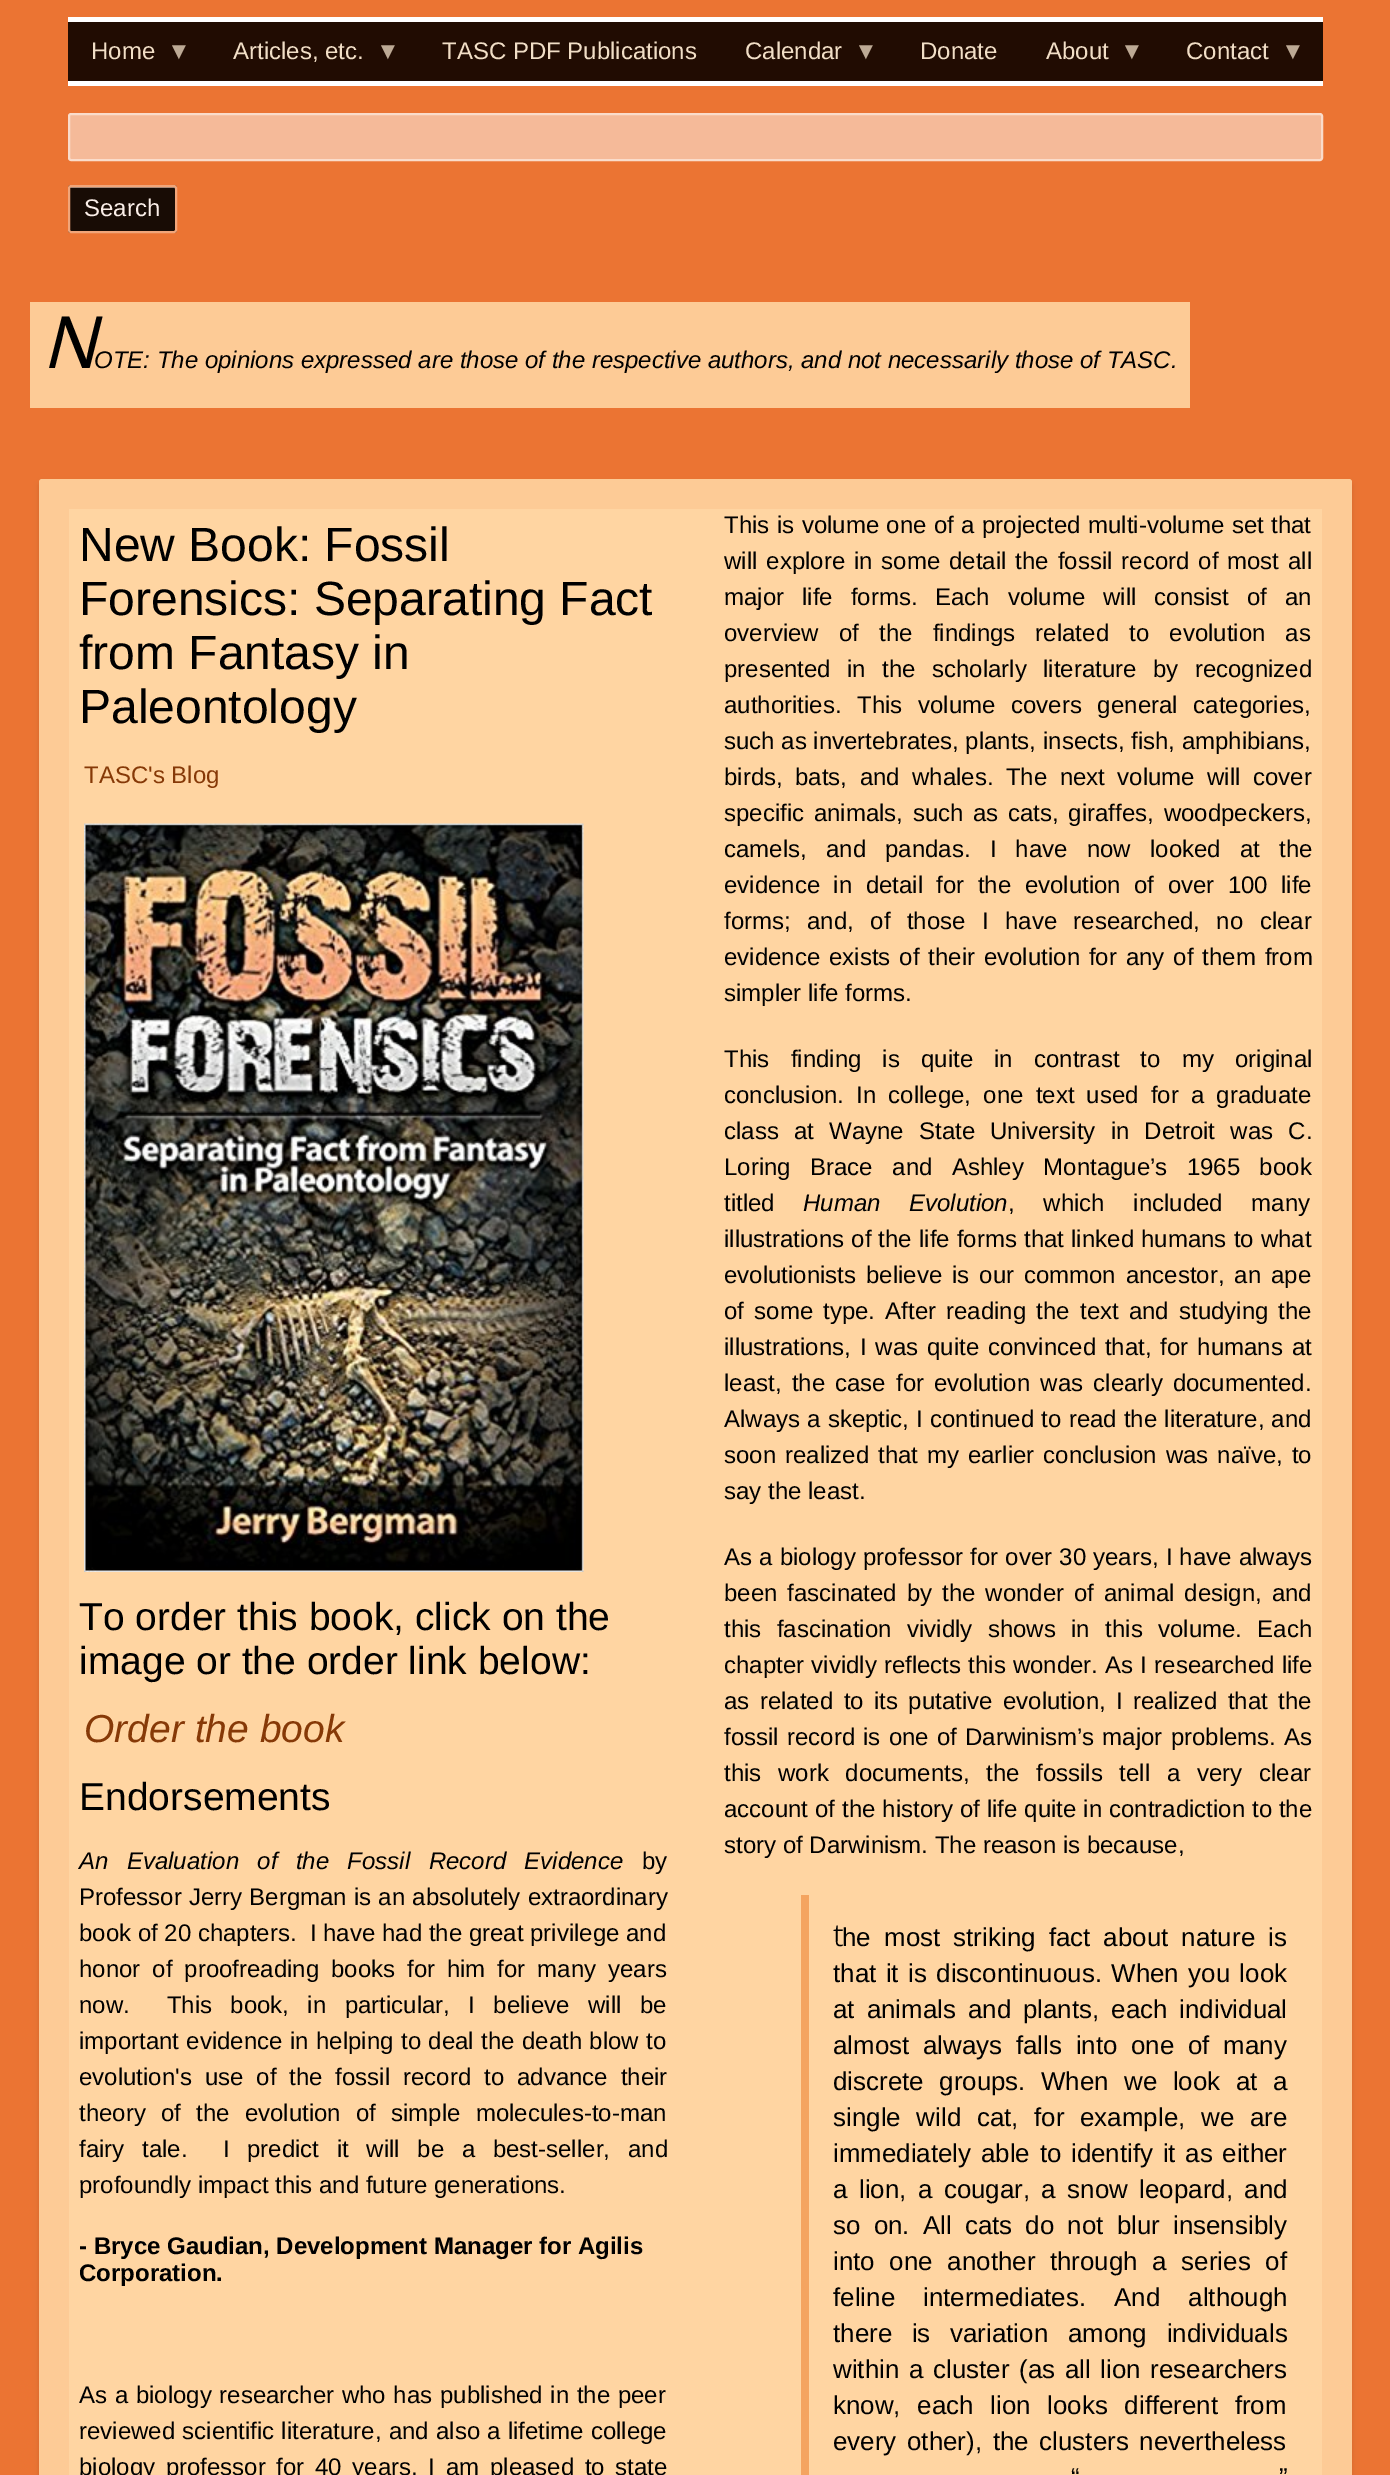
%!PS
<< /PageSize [1390 2475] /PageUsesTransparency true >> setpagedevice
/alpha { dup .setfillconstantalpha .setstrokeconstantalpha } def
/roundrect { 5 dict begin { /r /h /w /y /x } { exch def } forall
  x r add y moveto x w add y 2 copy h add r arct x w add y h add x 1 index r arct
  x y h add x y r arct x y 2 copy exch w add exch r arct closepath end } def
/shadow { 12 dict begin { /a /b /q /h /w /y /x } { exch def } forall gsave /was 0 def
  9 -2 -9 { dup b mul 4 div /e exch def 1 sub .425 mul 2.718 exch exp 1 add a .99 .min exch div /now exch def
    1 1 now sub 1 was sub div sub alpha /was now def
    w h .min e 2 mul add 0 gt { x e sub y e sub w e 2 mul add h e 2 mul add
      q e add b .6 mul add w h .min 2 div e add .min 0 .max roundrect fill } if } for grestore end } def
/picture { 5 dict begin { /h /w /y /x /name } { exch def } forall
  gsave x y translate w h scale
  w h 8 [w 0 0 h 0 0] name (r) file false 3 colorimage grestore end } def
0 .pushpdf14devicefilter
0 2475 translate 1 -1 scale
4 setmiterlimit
0.922 0.455 0.2 setrgbcolor
0 0 1390 2475 rectfill
0.129 0.047 0.008 setrgbcolor
68 22 1255 59 rectfill
1 setgray
68 17 1255 5 rectfill
68 81 1255 5 rectfill
/LiberationSans-Regular [24 0 0 -24 0 0] selectfont
0.945 0.871 0.776 setrgbcolor
91 59 moveto (Home) show
0.741 0.667 0.584 setrgbcolor
167 59 moveto (▼) show
0.945 0.871 0.776 setrgbcolor
233 59 moveto (Articles, etc.) show
0.741 0.667 0.584 setrgbcolor
376 59 moveto (▼) show
0.945 0.871 0.776 setrgbcolor
442 59 moveto (TASC PDF Publications) show
745 59 moveto (Calendar) show
0.741 0.667 0.584 setrgbcolor
854 59 moveto (▼) show
0.945 0.871 0.776 setrgbcolor
920 59 moveto (Donate) show
1046 59 moveto (About) show
0.741 0.667 0.584 setrgbcolor
1120 59 moveto (▼) show
0.945 0.871 0.776 setrgbcolor
1186 59 moveto (Contact) show
0.741 0.667 0.584 setrgbcolor
1281 59 moveto (▼) show
0.961 0.729 0.6 setrgbcolor
69 114 1253 46 2 roundrect gsave fill grestore
0.98 0.863 0.796 setrgbcolor
2 setlinewidth
stroke
0.094 0.047 0.02 setrgbcolor
68 185 109 48 3 roundrect fill
0.545 0.498 0.471 setrgbcolor
newpath 70 188 moveto 174 188 lineto 175 188 176 188 176 189 curveto 176 188 176 187 175 186 curveto 70 186 lineto 69 186 69 188 69 189 curveto closepath fill
0.945 0.647 0.475 setrgbcolor
69 186 107 46 2 roundrect stroke
0.98 0.933 0.91 setrgbcolor
84 216 moveto (Search) show
0.992 0.796 0.588 setrgbcolor
30 302 1160 106 rectfill
/NotoSans-Italic [72 0 0 -72 0 0] selectfont
0 setgray
42 368 moveto (N) show
/LiberationSans-Italic [24 0 0 -24 0 0] selectfont
94 368 moveto (OTE: The opinions expressed are those of the respective authors, and not necessarily those of TASC.) show
gsave
newpath 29 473 moveto 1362 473 lineto 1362 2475 lineto 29 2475 lineto closepath 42 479 moveto 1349 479 lineto 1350.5 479 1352 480.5 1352 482 curveto 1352 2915 lineto 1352 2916.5 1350.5 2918 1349 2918 curveto 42 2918 lineto 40.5 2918 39 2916.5 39 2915 curveto 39 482 lineto 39 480.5 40.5 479 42 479 curveto closepath eoclip newpath
39 483 1313 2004 3 3 0.1 shadow
grestore
0.88 alpha
1 0.843 0.643 setrgbcolor
39 479 1313 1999 3 roundrect fill
1 alpha
1 0.835 0.635 setrgbcolor
69 509 1253 1966 rectfill
/LiberationSans-Regular [24 0 0 -24 0 0] selectfont
0 setgray
724 533 moveto 0.75 0 32 (This is volume one of a projected multi-volume set that) widthshow
724 569 moveto 2.25 0 32 (will explore in some detail the fossil record of most all) widthshow
724 605 moveto 11.25 0 32 (major life forms. Each volume will consist of an) widthshow
724 641 moveto 13.5 0 32 (overview of the findings related to evolution as) widthshow
724 677 moveto 9.75 0 32 (presented in the scholarly literature by recognized) widthshow
724 713 moveto 9 0 32 (authorities. This volume covers general categories,) widthshow
724 749 moveto (such as invertebrates, plants, insects, fish, amphibians,) show
724 785 moveto 5.75 0 32 (birds, bats, and whales. The next volume will cover) widthshow
724 821 moveto 3 0 32 (specific animals, such as cats, giraffes, woodpeckers,) widthshow
724 857 moveto 12.5 0 32 (camels, and pandas. I have now looked at the) widthshow
724 893 moveto 6.75 0 32 (evidence in detail for the evolution of over 100 life) widthshow
724 929 moveto 9.75 0 32 (forms; and, of those I have researched, no clear) widthshow
724 965 moveto 2.25 0 32 (evidence exists of their evolution for any of them from) widthshow
724 1001 moveto (simpler life forms.) show
(img1.rgb) 84 823 500 749 picture
724 1067 moveto 14.5 0 32 (This finding is quite in contrast to my original) widthshow
724 1103 moveto 5.5 0 32 (conclusion. In college, one text used for a graduate) widthshow
724 1139 moveto 8.5 0 32 (class at Wayne State University in Detroit was C.) widthshow
724 1175 moveto 12.75 0 32 (Loring Brace and Ashley Montague’s 1965 book) widthshow
724 1211 moveto (titled) show
/LiberationSans-Italic [24 0 0 -24 0 0] selectfont
803 1211 moveto 22 0 32 (Human Evolution) widthshow
/LiberationSans-Regular [24 0 0 -24 0 0] selectfont
1008 1211 moveto 22 0 32 (, which included many) widthshow
724 1247 moveto 0.5 0 32 (illustrations of the life forms that linked humans to what) widthshow
724 1283 moveto 3.25 0 32 (evolutionists believe is our common ancestor, an ape) widthshow
724 1319 moveto 3.5 0 32 (of some type. After reading the text and studying the) widthshow
724 1355 moveto 2.25 0 32 (illustrations, I was quite convinced that, for humans at) widthshow
724 1391 moveto 3.5 0 32 (least, the case for evolution was clearly documented.) widthshow
724 1427 moveto 0.5 0 32 (Always a skeptic, I continued to read the literature, and) widthshow
724 1463 moveto 2.25 0 32 (soon realized that my earlier conclusion was naïve, to) widthshow
724 1499 moveto (say the least.) show
/LiberationSans-Regular [39 0 0 -39 0 0] selectfont
79 1630 moveto (To order this book, click on the) show
79 1674 moveto (image or the order link below:) show
/LiberationSans-Regular [24 0 0 -24 0 0] selectfont
724 1565 moveto 0.5 0 32 (As a biology professor for over 30 years, I have always) widthshow
724 1601 moveto 3.25 0 32 (been fascinated by the wonder of animal design, and) widthshow
724 1637 moveto 8.75 0 32 (this fascination vividly shows in this volume. Each) widthshow
724 1673 moveto 0.5 0 32 (chapter vividly reflects this wonder. As I researched life) widthshow
724 1709 moveto 3.75 0 32 (as related to its putative evolution, I realized that the) widthshow
724 1745 moveto 1.5 0 32 (fossil record is one of Darwinism’s major problems. As) widthshow
724 1781 moveto 10 0 32 (this work documents, the fossils tell a very clear) widthshow
724 1817 moveto 0.25 0 32 (account of the history of life quite in contradiction to the) widthshow
724 1853 moveto (story of Darwinism. The reason is because,) show
/LiberationSans-Italic [39 0 0 -39 0 0] selectfont
0.525 0.224 0.027 setrgbcolor
84 1742 moveto (Order the book) show
/LiberationSans-Regular [39 0 0 -39 0 0] selectfont
0 setgray
79 1810 moveto (Endorsements) show
/LiberationSans-Italic [24 0 0 -24 0 0] selectfont
79 1869 moveto 11.75 0 32 (An Evaluation of the Fossil Record Evidence) widthshow
/LiberationSans-Regular [24 0 0 -24 0 0] selectfont
642 1869 moveto (by) show
79 1905 moveto 0.5 0 32 (Professor Jerry Bergman is an absolutely extraordinary) widthshow
79 1941 moveto (book of 20 chapters.  I have had the great privilege and) show
79 1977 moveto 5.25 0 32 (honor of proofreading books for him for many years) widthshow
79 2013 moveto 11.75 0 32 (now.  This book, in particular, I believe will be) widthshow
79 2049 moveto 0.75 0 32 (important evidence in helping to deal the death blow to) widthshow
79 2085 moveto 6.25 0 32 (evolution's use of the fossil record to advance their) widthshow
79 2121 moveto 8.5 0 32 (theory of the evolution of simple molecules-to-man) widthshow
79 2157 moveto 11 0 32 (fairy tale.  I predict it will be a best-seller, and) widthshow
79 2193 moveto (profoundly impact this and future generations.) show
0.957 0.643 0.376 setrgbcolor
801 1895 8 580 rectfill
/NotoSans-Light [31 0 0 -31 0 0] selectfont
0 setgray
833 1946 moveto (t) show
/LiberationSans-Regular [25.9 0 0 -25.9 0 0] selectfont
842 1946 moveto 6 0 32 (he most striking fact about nature is) widthshow
833 1982 moveto 2.25 0 32 (that it is discontinuous. When you look) widthshow
833 2018 moveto 4.75 0 32 (at animals and plants, each individual) widthshow
833 2054 moveto 6.5 0 32 (almost always falls into one of many) widthshow
833 2090 moveto 8.25 0 32 (discrete groups. When we look at a) widthshow
833 2126 moveto 8.5 0 32 (single wild cat, for example, we are) widthshow
833 2162 moveto 2.5 0 32 (immediately able to identify it as either) widthshow
833 2198 moveto 4.25 0 32 (a lion, a cougar, a snow leopard, and) widthshow
833 2234 moveto 6 0 32 (so on. All cats do not blur insensibly) widthshow
833 2270 moveto 7.5 0 32 (into one another through a series of) widthshow
833 2306 moveto 21 0 32 (feline intermediates. And although) widthshow
833 2342 moveto 12.5 0 32 (there is variation among individuals) widthshow
833 2378 moveto 2.5 0 32 (within a cluster \(as all lion researchers) widthshow
833 2414 moveto 9.5 0 32 (know, each lion looks different from) widthshow
833 2450 moveto 3.5 0 32 (every other\), the clusters nevertheless) widthshow
1071 2486 moveto 9 0 32 (“) widthshow
1279 2486 moveto 9 0 32 (”) widthshow
/LiberationSans-Bold [24 0 0 -24 0 0] selectfont
79 2254 moveto (- Bryce Gaudian, Development Manager for Agilis) show
79 2281 moveto (Corporation.) show
/LiberationSans-Regular [24 0 0 -24 0 0] selectfont
79 2403 moveto 1 0 32 (As a biology researcher who has published in the peer) widthshow
79 2439 moveto 0.5 0 32 (reviewed scientific literature, and also a lifetime college) widthshow
79 2475 moveto 4 0 32 (biology professor for 40 years, I am pleased to state) widthshow
0.525 0.224 0.027 setrgbcolor
84 783 moveto (TASC's Blog) show
/LiberationSans-Regular [48 0 0 -48 0 0] selectfont
0 setgray
79 561 moveto (New Book: Fossil) show
79 615 moveto (Forensics: Separating Fact) show
79 669 moveto (from Fantasy in) show
79 723 moveto (Paleontology) show
.poppdf14devicefilter showpage
